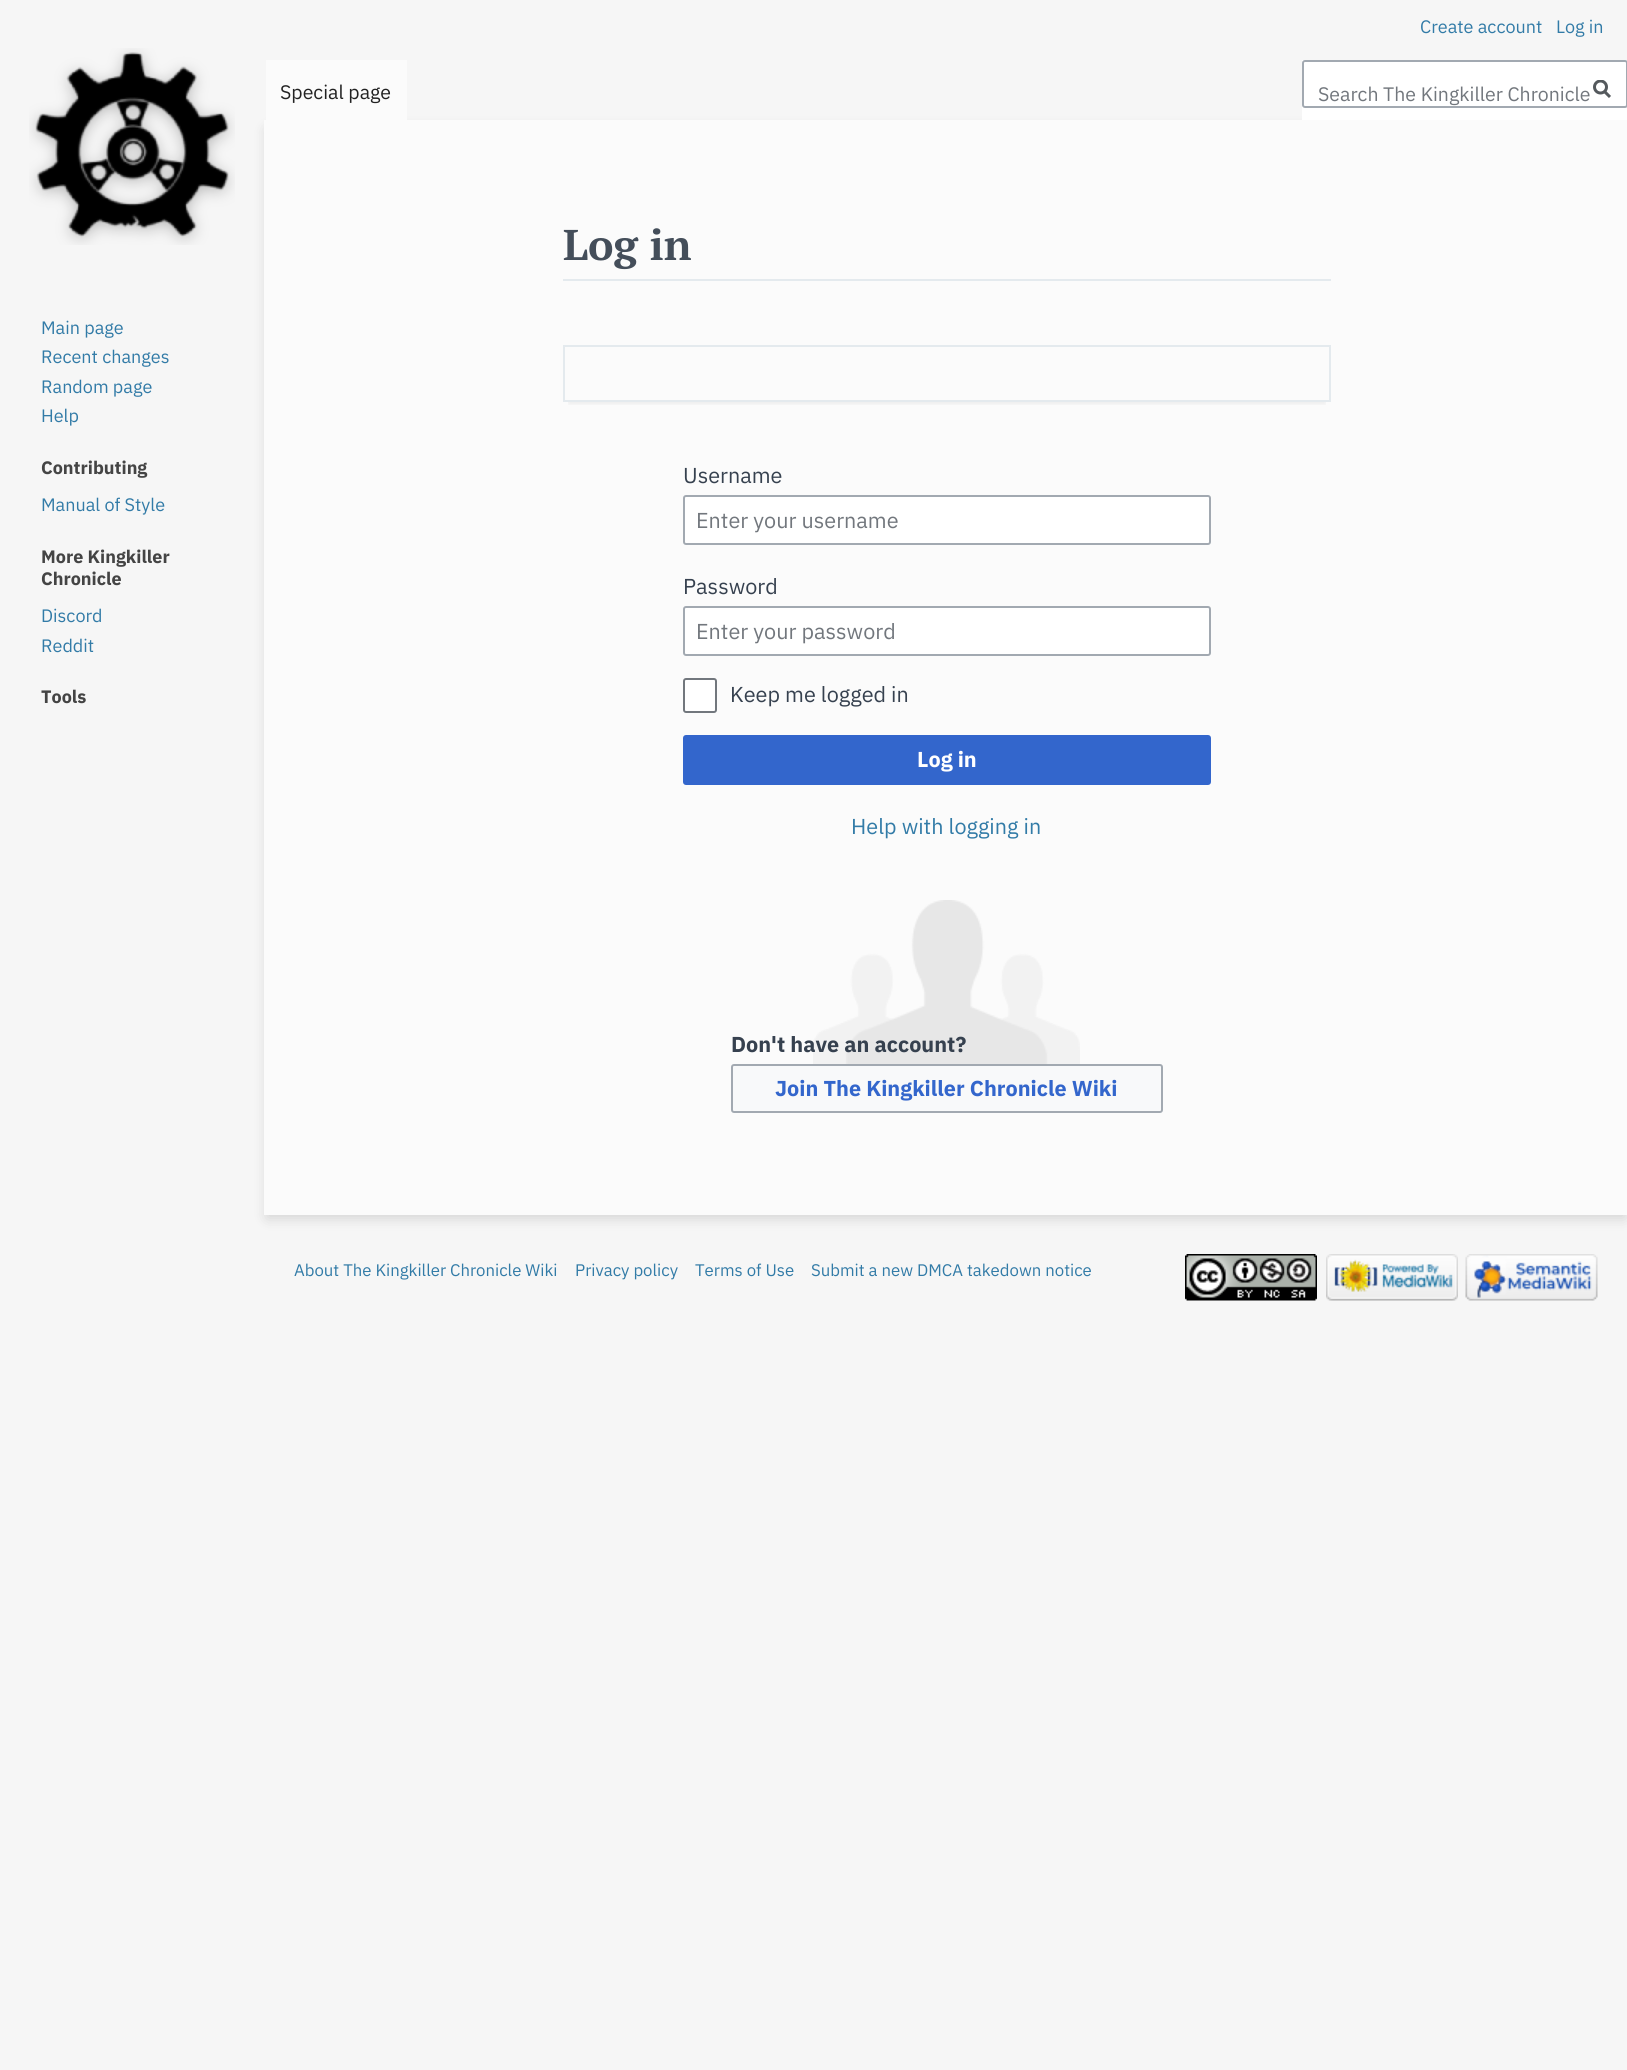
#include <cairo/cairo.h>
#include <math.h>
#include <stddef.h>

typedef struct { double x, y; const char *s; } line_t;
static cairo_t *cr;

static void rgb(unsigned color)
{
	cairo_set_source_rgb(cr, (color >> 16) / 255.0, (color >> 8 & 255) / 255.0, (color & 255) / 255.0);
}

static void rrect(double x, double y, double w, double h, double r)
{
	cairo_new_sub_path(cr);
	cairo_arc(cr, x + w - r, y + h - r, r, 0, M_PI / 2);
	cairo_arc(cr, x + r, y + h - r, r, M_PI / 2, M_PI);
	cairo_arc(cr, x + r, y + r, r, M_PI, 1.5 * M_PI);
	cairo_arc(cr, x + w - r, y + r, r, 1.5 * M_PI, 2 * M_PI);
	cairo_close_path(cr);
}

static void soft_shadow(double x, double y, double w, double h, double r, double blur, double alpha)
{
	cairo_push_group_with_content(cr, CAIRO_CONTENT_ALPHA);
	cairo_set_operator(cr, CAIRO_OPERATOR_SOURCE);
	for (int i = 15; i >= -15 && fmin(w, h) + blur * i / 3 > 0; i -= 2) {
		double e = blur * i / 6;
		cairo_set_source_rgba(cr, 0, 0, 0, alpha * erfc((i - 1) / 8.5) / 2);
		rrect(x - e, y - e, w + 2 * e, h + 2 * e, fmax(0, fmin(r + e + blur * .6, fmin(w, h) / 2 + e)));
		cairo_fill(cr);
	}
	cairo_pattern_t *soft = cairo_pop_group(cr);
	cairo_mask(cr, soft);
	cairo_pattern_destroy(soft);
}

static void image(const char *path, double x, double y, double w, double h)
{
	cairo_surface_t *image = cairo_image_surface_create_from_png(path);
	cairo_save(cr);
	cairo_set_source_surface(cr, image, x, y);
	cairo_rectangle(cr, x, y, w, h);
	cairo_fill(cr);
	cairo_restore(cr);
	cairo_surface_destroy(image);
}

int main(void) {
	cairo_surface_t *surface = cairo_image_surface_create(CAIRO_FORMAT_RGB24, 1627, 2070);
	cr = cairo_create(surface);
	cairo_font_options_t *options = cairo_font_options_create();
	cairo_font_options_set_hint_metrics(options, CAIRO_HINT_METRICS_OFF);
	cairo_font_options_set_hint_style(options, CAIRO_HINT_STYLE_NONE);
	cairo_set_font_options(cr, options);
	cairo_set_miter_limit(cr, 4);
	rgb(0xf6f6f6);
	cairo_paint(cr);
	rgb(0x000000);
	soft_shadow(267, 129, 1358, 1089, 0, 7, 0.15);
	rgb(0xfbfbfb);
	cairo_rectangle(cr, 266, 60, 141, 60);
	cairo_fill(cr);
	rgb(0xffffff);
	cairo_rectangle(cr, 1302, 60, 325, 60);
	cairo_fill(cr);
	rrect(1303, 61, 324, 46, 2);
	rgb(0xa2a9b1);
	cairo_stroke(cr);
	cairo_new_path(cr);
	cairo_move_to(cr, 1610, 97);
	cairo_line_to(cr, 1604, 91);
	rgb(0x54595d);
	cairo_set_line_width(cr, 3);
	cairo_stroke(cr);
	cairo_save(cr);
	cairo_rectangle(cr, 1593, 80, 18, 19);
	cairo_clip(cr);
	cairo_arc(cr, 1600.5, 87, 6, 0, 2 * M_PI);
	cairo_stroke(cr);
	cairo_restore(cr);
	image("img/1.png", 29, 48, 206, 197);
	rgb(0xfbfbfb);
	cairo_rectangle(cr, 264, 120, 1363, 1095);
	cairo_fill(cr);
	rgb(0xe4eaee);
	cairo_rectangle(cr, 563, 279, 768, 2);
	cairo_fill(cr);
	cairo_save(cr);
	cairo_rectangle(cr, 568, 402, 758, 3);
	cairo_clip(cr);
	rgb(0x000000);
	soft_shadow(569, 357, 756, 45, 0, 4, 0.1);
	cairo_restore(cr);
	cairo_rectangle(cr, 564, 346, 766, 55);
	cairo_set_line_width(cr, 2);
	cairo_stroke(cr);
	rgb(0xffffff);
	rrect(684, 496, 526, 48, 2);
	cairo_fill_preserve(cr);
	rgb(0xa2a9b1);
	cairo_stroke(cr);
	rgb(0xffffff);
	rrect(684, 607, 526, 48, 2);
	cairo_fill_preserve(cr);
	rgb(0xa2a9b1);
	cairo_stroke(cr);
	rgb(0xffffff);
	rrect(684, 679, 32, 33, 2);
	cairo_fill_preserve(cr);
	rgb(0x72777d);
	cairo_stroke(cr);
	rgb(0x3366cc);
	rrect(684, 736, 526, 48, 2);
	cairo_fill_preserve(cr);
	cairo_stroke(cr);
	image("img/2.png", 813, 900, 267, 164);
	rgb(0xf8f9fa);
	rrect(732, 1065, 430, 47, 2);
	cairo_fill_preserve(cr);
	rgb(0xa2a9b1);
	cairo_stroke(cr);
	image("img/3.png", 1185, 1254, 132, 47);
	image("img/4.png", 1326, 1254, 132, 47);
	image("img/5.png", 1465, 1254, 133, 47);
	cairo_select_font_face(cr, "IBM Plex Sans", CAIRO_FONT_SLANT_NORMAL, CAIRO_FONT_WEIGHT_NORMAL);
	cairo_set_font_size(cr, 18);
	rgb(0x327ba7);
	cairo_move_to(cr, 1420, 33);
	cairo_show_text(cr, "Create account");
	cairo_move_to(cr, 1556, 33);
	cairo_show_text(cr, "Log in");
	cairo_set_font_size(cr, 19.5);
	rgb(0x222222);
	cairo_move_to(cr, 280, 99);
	cairo_show_text(cr, "Special page");
	rgb(0x72777d);
	cairo_move_to(cr, 1318, 101);
	cairo_show_text(cr, "Search The Kingkiller Chronicle");
	cairo_set_font_size(cr, 18);
	rgb(0x327ba7);
	{
		static const line_t items[] = {
			{41, 334, "Main page"},
			{41, 363, "Recent changes"},
			{41, 393, "Random page"},
			{41, 422, "Help"},
		};
		for (size_t i = 0; i < sizeof items / sizeof *items; i++) {
			cairo_move_to(cr, items[i].x, items[i].y);
			cairo_show_text(cr, items[i].s);
		}
	}
	cairo_select_font_face(cr, "IBM Plex Sans", CAIRO_FONT_SLANT_NORMAL, CAIRO_FONT_WEIGHT_BOLD);
	rgb(0x444444);
	cairo_move_to(cr, 41, 474);
	cairo_show_text(cr, "Contributing");
	cairo_select_font_face(cr, "IBM Plex Sans", CAIRO_FONT_SLANT_NORMAL, CAIRO_FONT_WEIGHT_NORMAL);
	rgb(0x327ba7);
	cairo_move_to(cr, 41, 511);
	cairo_show_text(cr, "Manual of Style");
	cairo_select_font_face(cr, "IBM Plex Sans", CAIRO_FONT_SLANT_NORMAL, CAIRO_FONT_WEIGHT_BOLD);
	rgb(0x444444);
	cairo_move_to(cr, 41, 563);
	cairo_show_text(cr, "More Kingkiller");
	cairo_move_to(cr, 41, 585);
	cairo_show_text(cr, "Chronicle");
	cairo_select_font_face(cr, "IBM Plex Sans", CAIRO_FONT_SLANT_NORMAL, CAIRO_FONT_WEIGHT_NORMAL);
	rgb(0x327ba7);
	cairo_move_to(cr, 41, 622);
	cairo_show_text(cr, "Discord");
	cairo_move_to(cr, 41, 652);
	cairo_show_text(cr, "Reddit");
	cairo_select_font_face(cr, "IBM Plex Sans", CAIRO_FONT_SLANT_NORMAL, CAIRO_FONT_WEIGHT_BOLD);
	rgb(0x444444);
	cairo_move_to(cr, 41, 703);
	cairo_show_text(cr, "Tools");
	cairo_select_font_face(cr, "PT Serif", CAIRO_FONT_SLANT_NORMAL, CAIRO_FONT_WEIGHT_BOLD);
	cairo_set_font_size(cr, 43);
	rgb(0x444e5a);
	cairo_move_to(cr, 563, 260);
	cairo_show_text(cr, "Log in");
	cairo_select_font_face(cr, "IBM Plex Sans", CAIRO_FONT_SLANT_NORMAL, CAIRO_FONT_WEIGHT_NORMAL);
	cairo_set_font_size(cr, 21.6);
	rgb(0x36414f);
	cairo_move_to(cr, 683, 483);
	cairo_show_text(cr, "Username");
	rgb(0x72777d);
	cairo_move_to(cr, 696, 528);
	cairo_show_text(cr, "Enter your username");
	rgb(0x36414f);
	cairo_move_to(cr, 683, 594);
	cairo_show_text(cr, "Password");
	rgb(0x72777d);
	cairo_move_to(cr, 696, 639);
	cairo_show_text(cr, "Enter your password");
	rgb(0x36414f);
	cairo_move_to(cr, 730, 702);
	cairo_show_text(cr, "Keep me logged in");
	cairo_select_font_face(cr, "IBM Plex Sans", CAIRO_FONT_SLANT_NORMAL, CAIRO_FONT_WEIGHT_BOLD);
	rgb(0xffffff);
	cairo_move_to(cr, 917, 767);
	cairo_show_text(cr, "Log in");
	cairo_select_font_face(cr, "IBM Plex Sans", CAIRO_FONT_SLANT_NORMAL, CAIRO_FONT_WEIGHT_NORMAL);
	rgb(0x327ba7);
	cairo_move_to(cr, 851, 834);
	cairo_show_text(cr, "Help with logging in");
	cairo_select_font_face(cr, "IBM Plex Sans", CAIRO_FONT_SLANT_NORMAL, CAIRO_FONT_WEIGHT_BOLD);
	rgb(0x36414f);
	cairo_move_to(cr, 731, 1052);
	cairo_show_text(cr, "Don't have an account?");
	rgb(0x3366cc);
	cairo_move_to(cr, 775, 1096);
	cairo_show_text(cr, "Join The Kingkiller Chronicle Wiki");
	cairo_select_font_face(cr, "IBM Plex Sans", CAIRO_FONT_SLANT_NORMAL, CAIRO_FONT_WEIGHT_NORMAL);
	cairo_set_font_size(cr, 16.75);
	rgb(0x327ba7);
	{
		static const line_t items[] = {
			{294, 1276, "About The Kingkiller Chronicle Wiki"},
			{575, 1276, "Privacy policy"},
			{695, 1276, "Terms of Use"},
			{811, 1276, "Submit a new DMCA takedown notice"},
		};
		for (size_t i = 0; i < sizeof items / sizeof *items; i++) {
			cairo_move_to(cr, items[i].x, items[i].y);
			cairo_show_text(cr, items[i].s);
		}
	}
	cairo_surface_write_to_png(surface, "page.png");
	cairo_font_options_destroy(options);
	cairo_destroy(cr);
	cairo_surface_destroy(surface);
	return 0;
}
